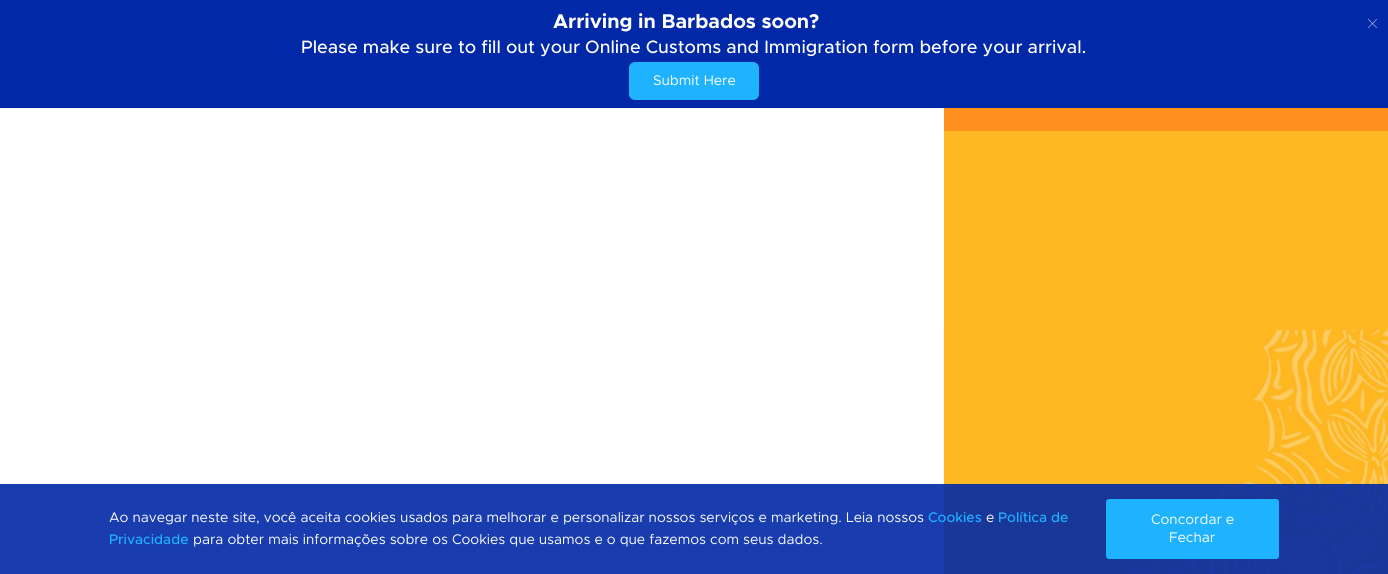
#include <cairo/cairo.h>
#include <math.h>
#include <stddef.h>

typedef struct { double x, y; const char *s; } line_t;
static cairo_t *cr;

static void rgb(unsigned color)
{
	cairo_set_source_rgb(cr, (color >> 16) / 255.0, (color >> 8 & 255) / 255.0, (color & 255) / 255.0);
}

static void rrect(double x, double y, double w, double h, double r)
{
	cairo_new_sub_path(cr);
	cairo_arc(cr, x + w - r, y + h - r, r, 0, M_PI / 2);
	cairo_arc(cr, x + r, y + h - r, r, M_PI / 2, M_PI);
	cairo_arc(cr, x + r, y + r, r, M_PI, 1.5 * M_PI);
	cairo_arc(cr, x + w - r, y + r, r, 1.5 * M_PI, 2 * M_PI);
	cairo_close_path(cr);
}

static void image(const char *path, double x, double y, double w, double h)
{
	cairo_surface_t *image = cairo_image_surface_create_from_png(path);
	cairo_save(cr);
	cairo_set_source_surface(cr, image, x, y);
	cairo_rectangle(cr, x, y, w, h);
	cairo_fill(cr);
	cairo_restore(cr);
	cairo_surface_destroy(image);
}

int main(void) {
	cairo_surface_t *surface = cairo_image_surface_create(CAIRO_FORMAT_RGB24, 1388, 574);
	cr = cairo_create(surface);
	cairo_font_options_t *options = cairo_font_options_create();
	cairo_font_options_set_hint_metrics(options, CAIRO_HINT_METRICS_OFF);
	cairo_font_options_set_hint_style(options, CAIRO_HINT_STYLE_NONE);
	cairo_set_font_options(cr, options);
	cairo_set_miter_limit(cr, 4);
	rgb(0xffffff);
	cairo_paint(cr);
	rgb(0x0028a7);
	cairo_rectangle(cr, 0, 0, 1388, 108);
	cairo_fill(cr);
	image("img/1.png", 1367, 18, 11, 11);
	rgb(0x1eb2ff);
	rrect(629, 62, 130, 38, 6);
	cairo_fill(cr);
	rgb(0xffb822);
	cairo_rectangle(cr, 944, 131, 444, 443);
	cairo_fill(cr);
	image("img/2.png", 943, 329, 445, 245);
	rgb(0xff911e);
	cairo_rectangle(cr, 944, 108, 444, 23);
	cairo_fill(cr);
	cairo_set_source_rgba(cr, 0, 0.157, 0.655, 0.9);
	cairo_rectangle(cr, 0, 484, 1388, 90);
	cairo_fill(cr);
	rgb(0x1eb2ff);
	rrect(1106, 499, 173, 60, 3);
	cairo_fill(cr);
	cairo_select_font_face(cr, "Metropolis", CAIRO_FONT_SLANT_NORMAL, CAIRO_FONT_WEIGHT_BOLD);
	cairo_set_font_size(cr, 20);
	rgb(0xffffff);
	cairo_move_to(cr, 553, 28);
	cairo_show_text(cr, "Arriving in Barbados soon?");
	cairo_select_font_face(cr, "Metropolis Medium", CAIRO_FONT_SLANT_NORMAL, CAIRO_FONT_WEIGHT_NORMAL);
	cairo_set_font_size(cr, 18);
	cairo_move_to(cr, 301, 53);
	cairo_show_text(cr, "Please make sure to fill out your Online Customs and Immigration form before your arrival.");
	cairo_select_font_face(cr, "Metropolis", CAIRO_FONT_SLANT_NORMAL, CAIRO_FONT_WEIGHT_NORMAL);
	cairo_set_font_size(cr, 14);
	cairo_move_to(cr, 653, 85);
	cairo_show_text(cr, "Submit Here");
	cairo_move_to(cr, 109, 522);
	cairo_show_text(cr, "Ao navegar neste site, você aceita cookies usados para melhorar e personalizar nossos serviços e marketing. Leia nossos");
	cairo_select_font_face(cr, "Metropolis Medium", CAIRO_FONT_SLANT_NORMAL, CAIRO_FONT_WEIGHT_NORMAL);
	rgb(0x1eb2ff);
	cairo_move_to(cr, 928, 522);
	cairo_show_text(cr, "Cookies");
	cairo_select_font_face(cr, "Metropolis", CAIRO_FONT_SLANT_NORMAL, CAIRO_FONT_WEIGHT_NORMAL);
	rgb(0xffffff);
	cairo_move_to(cr, 986, 522);
	cairo_show_text(cr, "e");
	cairo_select_font_face(cr, "Metropolis Medium", CAIRO_FONT_SLANT_NORMAL, CAIRO_FONT_WEIGHT_NORMAL);
	rgb(0x1eb2ff);
	cairo_move_to(cr, 998, 522);
	cairo_show_text(cr, "Política de");
	cairo_move_to(cr, 109, 544);
	cairo_show_text(cr, "Privacidade");
	cairo_select_font_face(cr, "Metropolis", CAIRO_FONT_SLANT_NORMAL, CAIRO_FONT_WEIGHT_NORMAL);
	rgb(0xffffff);
	{
		static const line_t items[] = {
			{193, 544, "para obter mais informações sobre os Cookies que usamos e o que fazemos com seus dados."},
			{1151, 524, "Concordar e"},
			{1169, 542, "Fechar"},
		};
		for (size_t i = 0; i < sizeof items / sizeof *items; i++) {
			cairo_move_to(cr, items[i].x, items[i].y);
			cairo_show_text(cr, items[i].s);
		}
	}
	cairo_surface_write_to_png(surface, "page.png");
	cairo_font_options_destroy(options);
	cairo_destroy(cr);
	cairo_surface_destroy(surface);
	return 0;
}
